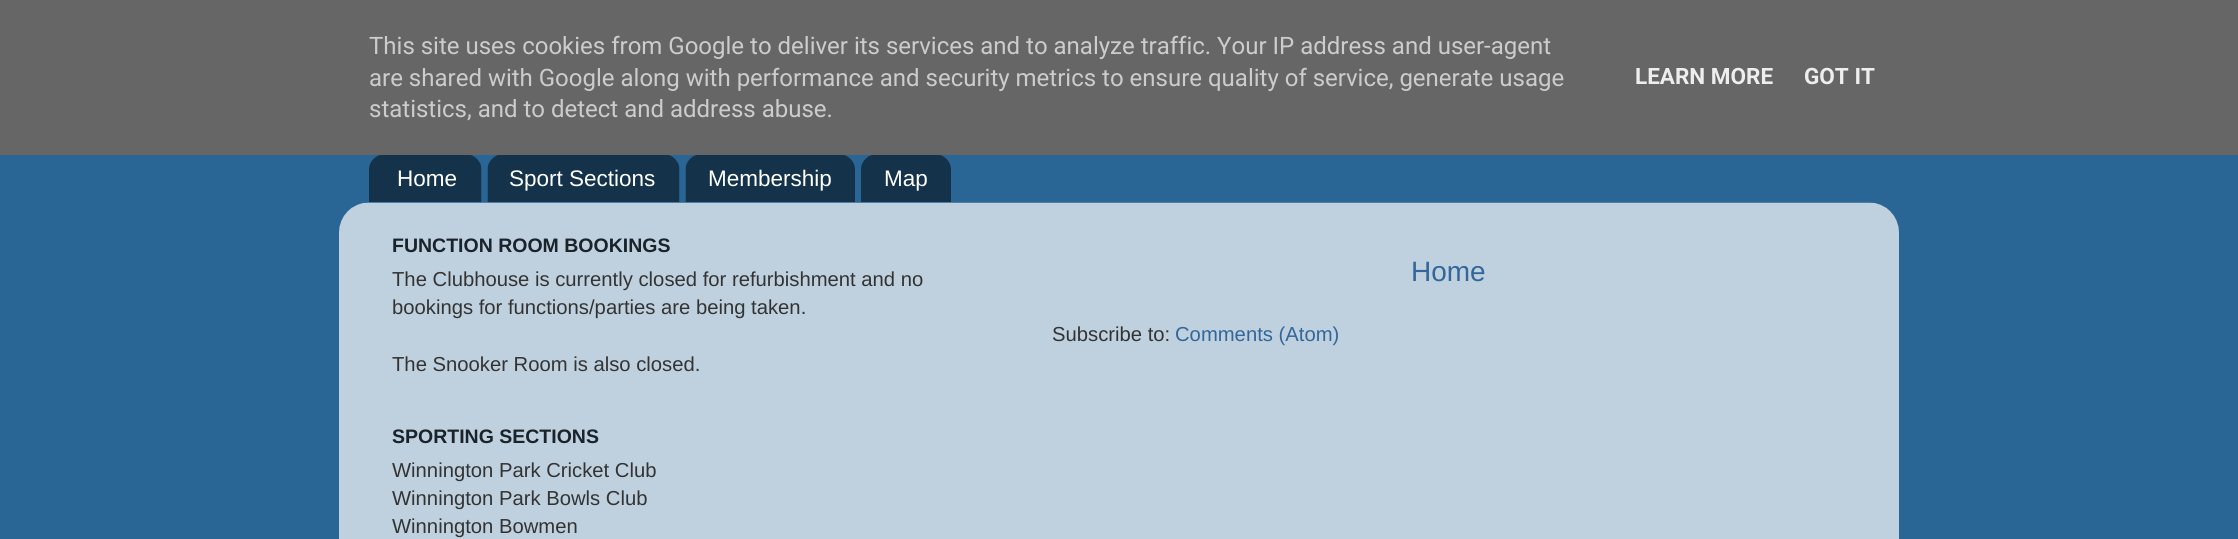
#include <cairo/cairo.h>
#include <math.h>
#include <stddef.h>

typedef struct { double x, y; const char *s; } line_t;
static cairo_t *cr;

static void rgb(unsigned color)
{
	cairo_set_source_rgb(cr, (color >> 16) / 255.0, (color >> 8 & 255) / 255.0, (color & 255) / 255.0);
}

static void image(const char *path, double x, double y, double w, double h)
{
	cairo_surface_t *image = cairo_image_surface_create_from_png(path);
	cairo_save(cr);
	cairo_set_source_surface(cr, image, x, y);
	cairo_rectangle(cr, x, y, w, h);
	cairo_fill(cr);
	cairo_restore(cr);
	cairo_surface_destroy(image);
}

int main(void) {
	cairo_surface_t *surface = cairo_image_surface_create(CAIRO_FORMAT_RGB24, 2238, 539);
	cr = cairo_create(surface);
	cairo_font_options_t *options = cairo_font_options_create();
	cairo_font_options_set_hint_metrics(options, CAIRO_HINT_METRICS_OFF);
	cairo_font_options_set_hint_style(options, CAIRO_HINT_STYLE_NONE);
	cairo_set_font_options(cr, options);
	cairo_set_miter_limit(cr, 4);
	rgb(0x296695);
	cairo_paint(cr);
	rgb(0x666666);
	cairo_rectangle(cr, 0, 0, 2238, 155);
	cairo_fill(cr);
	image("img/1.png", 369, 155, 113, 48);
	image("img/2.png", 487, 155, 193, 48);
	image("img/3.png", 685, 155, 170, 48);
	image("img/4.png", 861, 155, 90, 48);
	image("img/5.png", 339, 202, 1560, 337);
	cairo_select_font_face(cr, "Roboto", CAIRO_FONT_SLANT_NORMAL, CAIRO_FONT_WEIGHT_NORMAL);
	cairo_set_font_size(cr, 24);
	rgb(0xcccccc);
	{
		static const line_t items[] = {
			{369, 54, "This site uses cookies from Google to deliver its services and to analyze traffic. Your IP address and user-agent"},
			{369, 86, "are shared with Google along with performance and security metrics to ensure quality of service, generate usage"},
			{369, 117, "statistics, and to detect and address abuse."},
		};
		for (size_t i = 0; i < sizeof items / sizeof *items; i++) {
			cairo_move_to(cr, items[i].x, items[i].y);
			cairo_show_text(cr, items[i].s);
		}
	}
	cairo_select_font_face(cr, "Roboto", CAIRO_FONT_SLANT_NORMAL, CAIRO_FONT_WEIGHT_BOLD);
	cairo_set_font_size(cr, 22.5);
	rgb(0xeeeeee);
	cairo_move_to(cr, 1635, 84);
	cairo_show_text(cr, "LEARN MORE");
	cairo_move_to(cr, 1804, 84);
	cairo_show_text(cr, "GOT IT");
	cairo_select_font_face(cr, "Liberation Sans", CAIRO_FONT_SLANT_NORMAL, CAIRO_FONT_WEIGHT_NORMAL);
	rgb(0xffffff);
	{
		static const line_t items[] = {
			{397, 186, "Home"},
			{509, 186, "Sport Sections"},
			{708, 186, "Membership"},
			{884, 186, "Map"},
		};
		for (size_t i = 0; i < sizeof items / sizeof *items; i++) {
			cairo_move_to(cr, items[i].x, items[i].y);
			cairo_show_text(cr, items[i].s);
		}
	}
	cairo_select_font_face(cr, "Liberation Sans", CAIRO_FONT_SLANT_NORMAL, CAIRO_FONT_WEIGHT_BOLD);
	cairo_set_font_size(cr, 19.5);
	rgb(0x1a222a);
	cairo_move_to(cr, 392, 252);
	cairo_show_text(cr, "FUNCTION ROOM BOOKINGS");
	cairo_select_font_face(cr, "Liberation Sans", CAIRO_FONT_SLANT_NORMAL, CAIRO_FONT_WEIGHT_NORMAL);
	cairo_set_font_size(cr, 20.25);
	rgb(0x333333);
	{
		static const line_t items[] = {
			{392, 286, "The Clubhouse is currently closed for refurbishment and no"},
			{392, 314, "bookings for functions/parties are being taken."},
			{392, 371, "The Snooker Room is also closed."},
		};
		for (size_t i = 0; i < sizeof items / sizeof *items; i++) {
			cairo_move_to(cr, items[i].x, items[i].y);
			cairo_show_text(cr, items[i].s);
		}
	}
	cairo_select_font_face(cr, "Liberation Sans", CAIRO_FONT_SLANT_NORMAL, CAIRO_FONT_WEIGHT_BOLD);
	cairo_set_font_size(cr, 19.5);
	rgb(0x1a222a);
	cairo_move_to(cr, 392, 443);
	cairo_show_text(cr, "SPORTING SECTIONS");
	cairo_select_font_face(cr, "Liberation Sans", CAIRO_FONT_SLANT_NORMAL, CAIRO_FONT_WEIGHT_NORMAL);
	cairo_set_font_size(cr, 20.25);
	rgb(0x333333);
	{
		static const line_t items[] = {
			{392, 477, "Winnington Park Cricket Club"},
			{392, 505, "Winnington Park Bowls Club"},
			{392, 533, "Winnington Bowmen"},
		};
		for (size_t i = 0; i < sizeof items / sizeof *items; i++) {
			cairo_move_to(cr, items[i].x, items[i].y);
			cairo_show_text(cr, items[i].s);
		}
	}
	cairo_set_font_size(cr, 28);
	rgb(0x336699);
	cairo_move_to(cr, 1411, 281);
	cairo_show_text(cr, "Home");
	cairo_set_font_size(cr, 20.25);
	rgb(0x333333);
	cairo_move_to(cr, 1052, 341);
	cairo_show_text(cr, "Subscribe to:");
	rgb(0x336699);
	cairo_move_to(cr, 1175, 341);
	cairo_show_text(cr, "Comments (Atom)");
	cairo_surface_write_to_png(surface, "page.png");
	cairo_font_options_destroy(options);
	cairo_destroy(cr);
	cairo_surface_destroy(surface);
	return 0;
}
